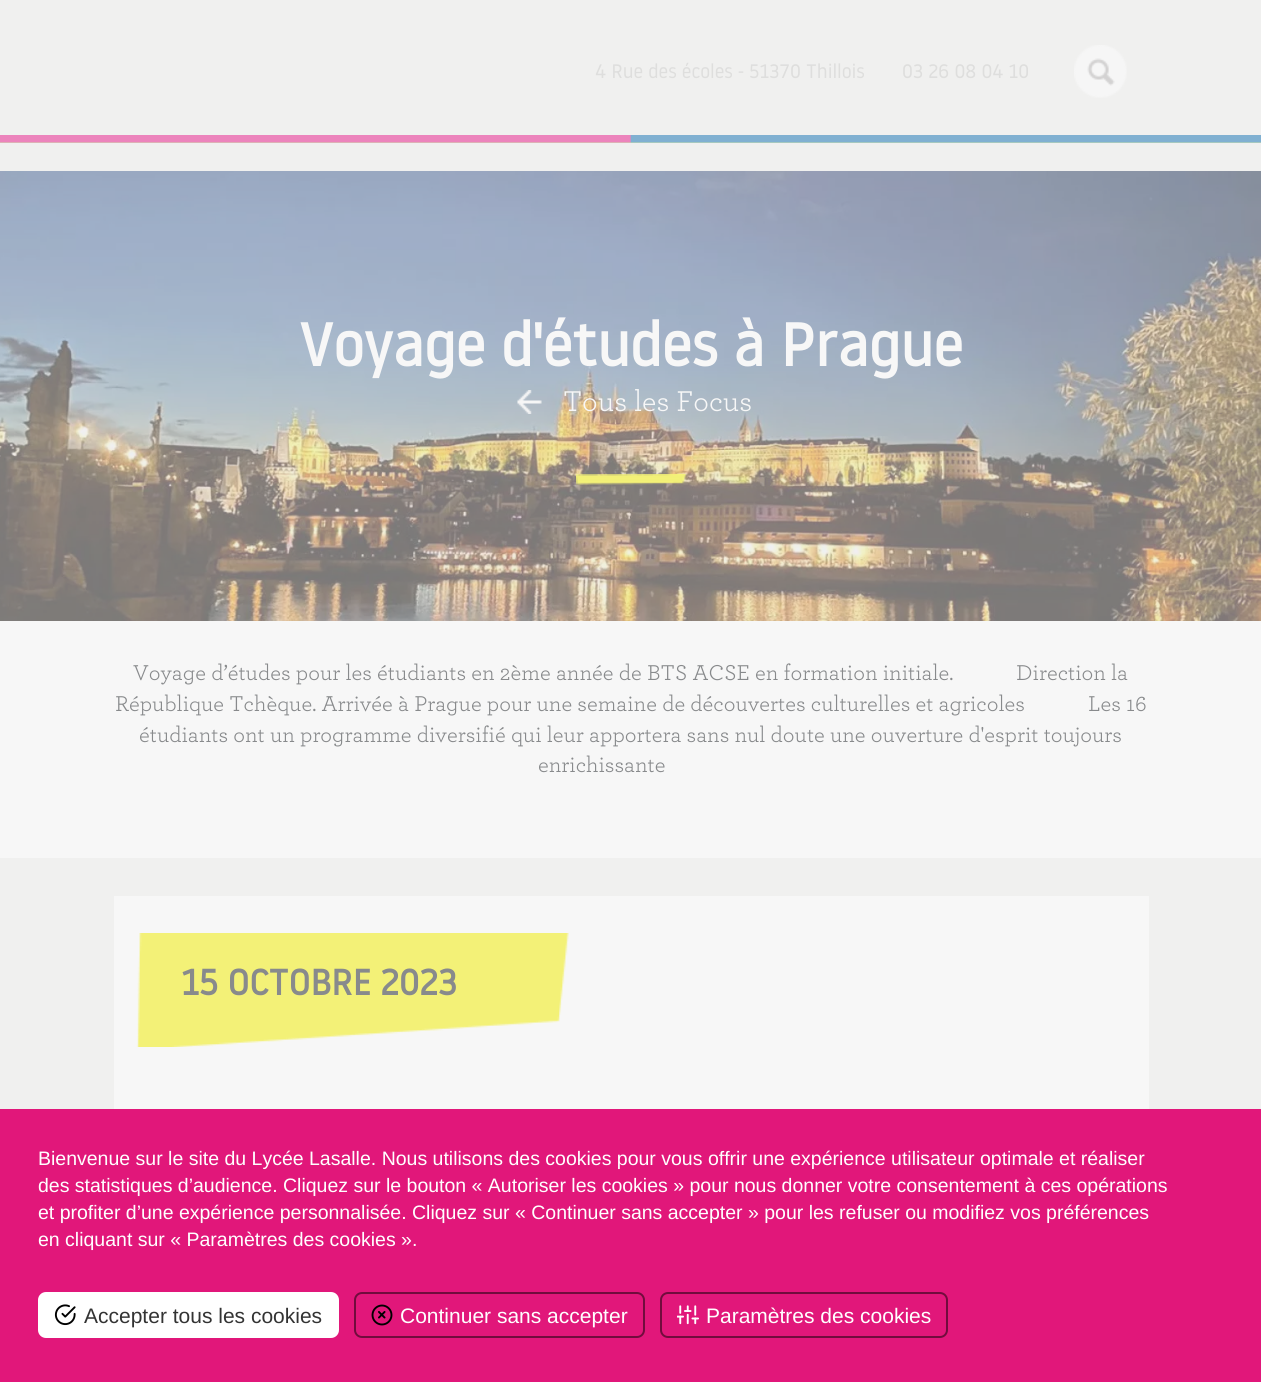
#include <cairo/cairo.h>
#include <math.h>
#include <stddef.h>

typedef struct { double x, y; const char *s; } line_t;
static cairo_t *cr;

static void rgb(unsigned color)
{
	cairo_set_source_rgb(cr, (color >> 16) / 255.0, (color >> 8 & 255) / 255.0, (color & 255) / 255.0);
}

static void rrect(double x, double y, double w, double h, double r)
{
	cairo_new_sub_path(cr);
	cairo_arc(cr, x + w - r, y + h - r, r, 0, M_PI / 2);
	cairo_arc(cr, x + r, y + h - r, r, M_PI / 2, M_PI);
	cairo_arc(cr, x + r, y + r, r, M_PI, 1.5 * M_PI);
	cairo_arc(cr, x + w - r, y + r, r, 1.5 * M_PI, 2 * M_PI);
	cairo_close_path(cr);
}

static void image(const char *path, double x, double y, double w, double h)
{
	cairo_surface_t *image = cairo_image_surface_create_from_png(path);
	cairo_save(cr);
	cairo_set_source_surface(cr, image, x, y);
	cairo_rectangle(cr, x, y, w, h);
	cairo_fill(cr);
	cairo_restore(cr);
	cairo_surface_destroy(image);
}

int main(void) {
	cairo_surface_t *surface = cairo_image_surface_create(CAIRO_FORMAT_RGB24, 1261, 1382);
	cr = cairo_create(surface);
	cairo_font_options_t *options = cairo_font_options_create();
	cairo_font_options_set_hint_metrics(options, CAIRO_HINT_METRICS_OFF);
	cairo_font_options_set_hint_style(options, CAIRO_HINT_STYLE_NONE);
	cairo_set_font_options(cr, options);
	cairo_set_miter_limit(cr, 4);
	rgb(0xf0f0ef);
	cairo_paint(cr);
	image("img/1.png", 1074, 45, 53, 53);
	rgb(0xcce1af);
	cairo_rectangle(cr, 0, 142, 1261, 1);
	cairo_fill(cr);
	image("img/2.png", 0, 135, 1261, 8);
	rgb(0xf7f7f7);
	cairo_rectangle(cr, 0, 621, 1261, 237);
	cairo_fill(cr);
	image("img/3.png", 0, 171, 1261, 450);
	image("img/4.png", 576, 474, 110, 11);
	image("img/5.png", 517, 390, 25, 24);
	cairo_rectangle(cr, 114, 896, 1035, 213);
	cairo_fill(cr);
	image("img/6.png", 136, 933, 433, 114);
	rgb(0xe1177a);
	cairo_rectangle(cr, 0, 1109, 1261, 273);
	cairo_fill(cr);
	rgb(0xffffff);
	rrect(39, 1293, 299, 44, 7);
	cairo_fill_preserve(cr);
	cairo_stroke(cr);
	image("img/7.png", 54, 1304, 22, 22);
	rrect(355, 1293, 289, 44, 7);
	rgb(0x710c3d);
	cairo_stroke(cr);
	image("img/8.png", 371, 1304, 22, 22);
	rrect(661, 1293, 286, 44, 7);
	cairo_stroke(cr);
	image("img/9.png", 677, 1305, 22, 20);
	cairo_select_font_face(cr, "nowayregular", CAIRO_FONT_SLANT_NORMAL, CAIRO_FONT_WEIGHT_NORMAL);
	cairo_set_font_size(cr, 19.5);
	rgb(0xdededd);
	cairo_move_to(cr, 595, 78);
	cairo_show_text(cr, "4 Rue des écoles - 51370 Thillois");
	cairo_move_to(cr, 902, 78);
	cairo_show_text(cr, "03 26 08 04 10");
	cairo_select_font_face(cr, "nowayregular", CAIRO_FONT_SLANT_NORMAL, CAIRO_FONT_WEIGHT_BOLD);
	cairo_set_font_size(cr, 60);
	rgb(0xf7f7f7);
	cairo_move_to(cr, 299, 366);
	cairo_show_text(cr, "Voyage d'études à Prague");
	cairo_select_font_face(cr, "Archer", CAIRO_FONT_SLANT_NORMAL, CAIRO_FONT_WEIGHT_NORMAL);
	cairo_set_font_size(cr, 30);
	cairo_move_to(cr, 563, 411);
	cairo_show_text(cr, "Tous les Focus");
	cairo_set_font_size(cr, 22.5);
	rgb(0x888a8c);
	{
		static const line_t items[] = {
			{133, 680, "Voyage d’études pour les étudiants en 2ème année de BTS ACSE en formation initiale."},
			{1016, 680, "Direction la"},
			{115, 711, "République Tchèque. Arrivée à Prague pour une semaine de découvertes culturelles et agricoles"},
			{1088, 711, "Les 16"},
			{139, 742, "étudiants ont un programme diversifié qui leur apportera sans nul doute une ouverture d'esprit toujours"},
			{538, 772, "enrichissante"},
		};
		for (size_t i = 0; i < sizeof items / sizeof *items; i++) {
			cairo_move_to(cr, items[i].x, items[i].y);
			cairo_show_text(cr, items[i].s);
		}
	}
	cairo_select_font_face(cr, "nowayregular", CAIRO_FONT_SLANT_NORMAL, CAIRO_FONT_WEIGHT_BOLD);
	cairo_set_font_size(cr, 36);
	cairo_move_to(cr, 181, 995);
	cairo_show_text(cr, "15 OCTOBRE 2023");
	cairo_select_font_face(cr, "Liberation Sans", CAIRO_FONT_SLANT_NORMAL, CAIRO_FONT_WEIGHT_NORMAL);
	cairo_set_font_size(cr, 19.5);
	rgb(0xffffff);
	{
		static const line_t items[] = {
			{38, 1165, "Bienvenue sur le site du Lycée Lasalle. Nous utilisons des cookies pour vous offrir une expérience utilisateur optimale et réaliser"},
			{38, 1192, "des statistiques d’audience. Cliquez sur le bouton « Autoriser les cookies » pour nous donner votre consentement à ces opérations"},
			{38, 1219, "et profiter d’une expérience personnalisée. Cliquez sur « Continuer sans accepter » pour les refuser ou modifiez vos préférences"},
			{38, 1246, "en cliquant sur « Paramètres des cookies »."},
		};
		for (size_t i = 0; i < sizeof items / sizeof *items; i++) {
			cairo_move_to(cr, items[i].x, items[i].y);
			cairo_show_text(cr, items[i].s);
		}
	}
	cairo_set_font_size(cr, 21);
	rgb(0x333333);
	cairo_move_to(cr, 84, 1323);
	cairo_show_text(cr, "Accepter tous les cookies");
	rgb(0xffffff);
	cairo_move_to(cr, 400, 1323);
	cairo_show_text(cr, "Continuer sans accepter");
	cairo_move_to(cr, 706, 1323);
	cairo_show_text(cr, "Paramètres des cookies");
	cairo_surface_write_to_png(surface, "page.png");
	cairo_font_options_destroy(options);
	cairo_destroy(cr);
	cairo_surface_destroy(surface);
	return 0;
}
